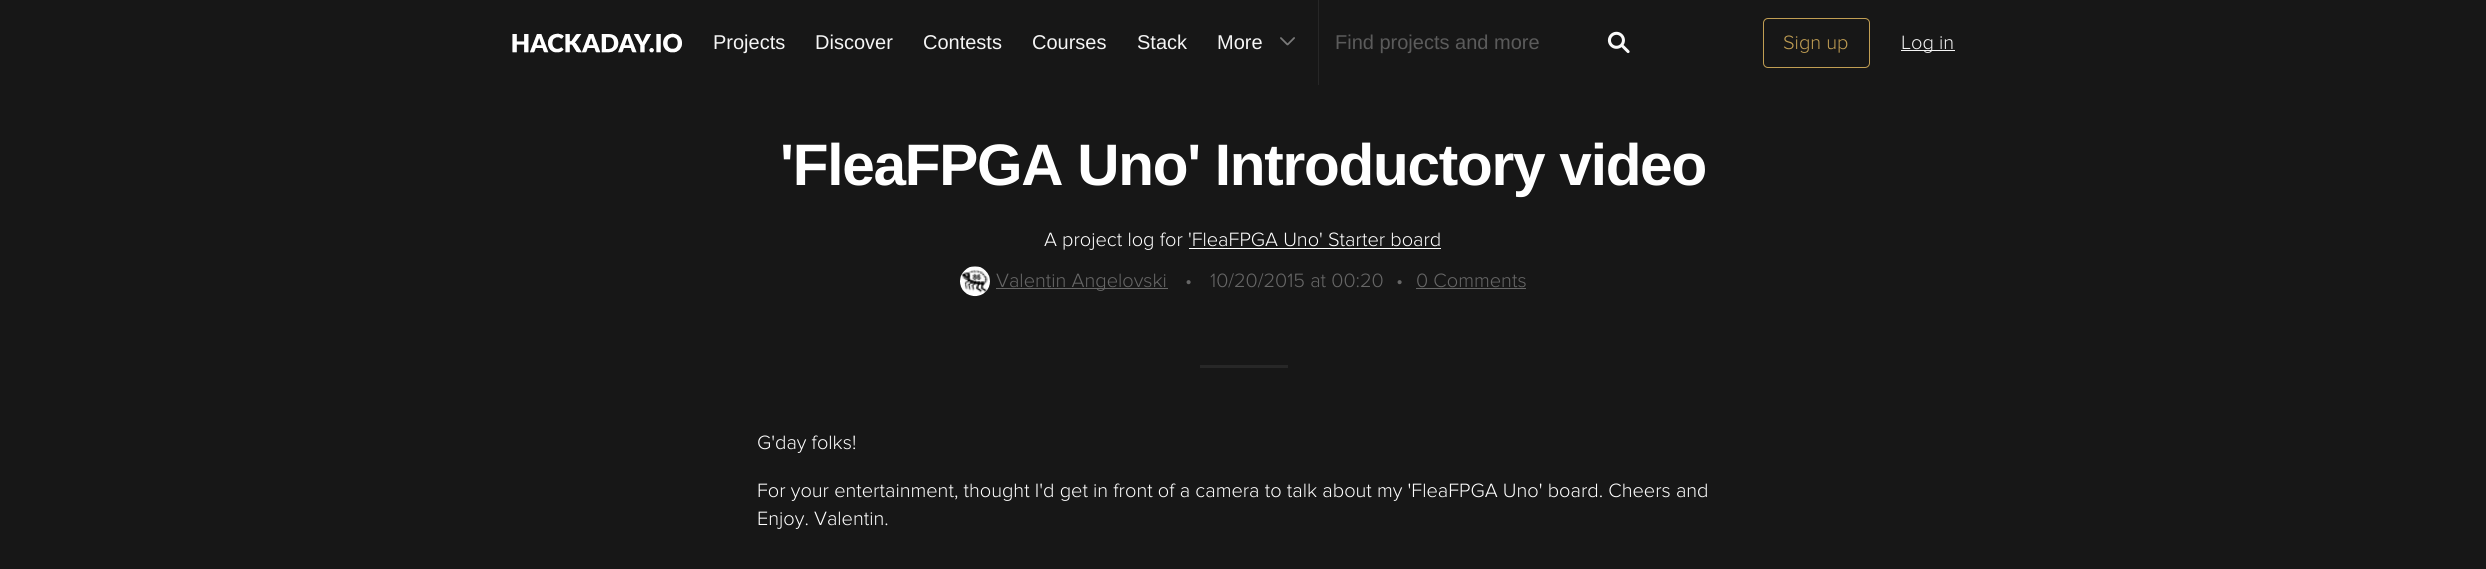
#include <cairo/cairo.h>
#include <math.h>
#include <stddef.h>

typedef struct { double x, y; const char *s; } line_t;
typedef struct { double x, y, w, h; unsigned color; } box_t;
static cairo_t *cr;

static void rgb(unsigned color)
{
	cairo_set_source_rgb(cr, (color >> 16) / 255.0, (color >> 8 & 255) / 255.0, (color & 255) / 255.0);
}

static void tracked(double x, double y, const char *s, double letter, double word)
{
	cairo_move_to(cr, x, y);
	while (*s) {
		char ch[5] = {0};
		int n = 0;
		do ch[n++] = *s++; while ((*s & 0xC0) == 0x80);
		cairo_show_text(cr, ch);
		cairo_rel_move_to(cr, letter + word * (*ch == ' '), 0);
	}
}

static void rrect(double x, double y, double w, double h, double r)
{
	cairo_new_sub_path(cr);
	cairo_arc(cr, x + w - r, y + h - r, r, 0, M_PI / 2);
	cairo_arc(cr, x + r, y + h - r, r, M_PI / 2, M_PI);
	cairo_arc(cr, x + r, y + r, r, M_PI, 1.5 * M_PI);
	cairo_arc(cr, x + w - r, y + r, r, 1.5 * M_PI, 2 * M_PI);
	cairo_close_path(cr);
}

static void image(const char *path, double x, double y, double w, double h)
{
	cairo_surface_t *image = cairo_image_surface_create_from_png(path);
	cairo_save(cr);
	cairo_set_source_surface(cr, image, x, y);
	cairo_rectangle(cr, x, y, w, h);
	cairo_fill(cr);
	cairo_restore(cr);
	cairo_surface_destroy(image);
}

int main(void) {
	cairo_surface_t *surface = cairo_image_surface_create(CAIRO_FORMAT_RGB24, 2486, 569);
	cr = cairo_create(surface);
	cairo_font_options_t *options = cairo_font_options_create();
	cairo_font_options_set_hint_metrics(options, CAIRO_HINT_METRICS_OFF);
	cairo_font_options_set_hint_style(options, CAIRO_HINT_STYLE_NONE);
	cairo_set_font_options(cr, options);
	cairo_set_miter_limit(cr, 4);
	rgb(0x171717);
	cairo_paint(cr);
	image("img/1.png", 512, 33, 170, 20);
	image("img/2.png", 1280, 37, 15, 9);
	rgb(0x272727);
	cairo_rectangle(cr, 1318, 0, 1, 85);
	cairo_fill(cr);
	image("img/3.png", 1607, 31, 23, 23);
	rrect(1763.5, 18.5, 106, 49, 4.5);
	rgb(0xc19e53);
	cairo_set_line_width(cr, 1);
	cairo_stroke(cr);
	rgb(0xf5f5f5);
	cairo_rectangle(cr, 1901, 50, 54, 1);
	cairo_fill(cr);
	rgb(0xffffff);
	cairo_rectangle(cr, 1189, 248, 252, 1);
	cairo_fill(cr);
	rgb(0x000000);
	cairo_arc(cr, 975, 281, 15, 0, 2 * M_PI);
	cairo_fill(cr);
	image("img/4.png", 960, 266, 30, 31);
	{
		static const box_t items[] = {
			{996, 288, 172, 1, 0x676767},
			{1416, 288, 110, 1, 0x676767},
			{1200, 365, 88, 3, 0x272727},
		};
		for (size_t i = 0; i < sizeof items / sizeof *items; i++) {
			rgb(items[i].color);
			cairo_rectangle(cr, items[i].x, items[i].y, items[i].w, items[i].h);
			cairo_fill(cr);
		}
	}
	cairo_select_font_face(cr, "Liberation Sans", CAIRO_FONT_SLANT_NORMAL, CAIRO_FONT_WEIGHT_NORMAL);
	cairo_set_font_size(cr, 20);
	rgb(0xf5f5f5);
	{
		static const line_t items[] = {
			{713, 49, "Projects"},
			{815, 49, "Discover"},
			{923, 49, "Contests"},
			{1032, 49, "Courses"},
			{1137, 49, "Stack"},
			{1217, 49, "More"},
		};
		for (size_t i = 0; i < sizeof items / sizeof *items; i++) {
			cairo_move_to(cr, items[i].x, items[i].y);
			cairo_show_text(cr, items[i].s);
		}
	}
	rgb(0x5b5b5b);
	cairo_move_to(cr, 1335, 49);
	cairo_show_text(cr, "Find projects and more");
	cairo_select_font_face(cr, "Proxima Nova Light", CAIRO_FONT_SLANT_NORMAL, CAIRO_FONT_WEIGHT_NORMAL);
	rgb(0xc19e53);
	cairo_move_to(cr, 1783, 49);
	cairo_show_text(cr, "Sign up");
	rgb(0xf5f5f5);
	cairo_move_to(cr, 1901, 49);
	cairo_show_text(cr, "Log in");
	cairo_select_font_face(cr, "Liberation Sans", CAIRO_FONT_SLANT_NORMAL, CAIRO_FONT_WEIGHT_BOLD);
	cairo_set_font_size(cr, 58.5);
	rgb(0xffffff);
	tracked(780, 185, "'FleaFPGA Uno' Introductory video", -1.25, 0);
	cairo_select_font_face(cr, "Proxima Nova Light", CAIRO_FONT_SLANT_NORMAL, CAIRO_FONT_WEIGHT_NORMAL);
	cairo_set_font_size(cr, 20);
	cairo_move_to(cr, 1044, 246);
	cairo_show_text(cr, "A project log for 'FleaFPGA Uno' Starter board");
	rgb(0x676767);
	{
		static const line_t items[] = {
			{996, 287, "Valentin Angelovski"},
			{1185, 287, "•"},
			{1210, 287, "10/20/2015 at 00:20"},
			{1396, 287, "•"},
			{1416, 287, "0 Comments"},
		};
		for (size_t i = 0; i < sizeof items / sizeof *items; i++) {
			cairo_move_to(cr, items[i].x, items[i].y);
			cairo_show_text(cr, items[i].s);
		}
	}
	rgb(0xffffff);
	{
		static const line_t items[] = {
			{757, 449, "G'day folks!"},
			{757, 497, "For your entertainment, thought I'd get in front of a camera to talk about my 'FleaFPGA Uno' board. Cheers and"},
			{757, 525, "Enjoy. Valentin."},
		};
		for (size_t i = 0; i < sizeof items / sizeof *items; i++) {
			cairo_move_to(cr, items[i].x, items[i].y);
			cairo_show_text(cr, items[i].s);
		}
	}
	cairo_surface_write_to_png(surface, "page.png");
	cairo_font_options_destroy(options);
	cairo_destroy(cr);
	cairo_surface_destroy(surface);
	return 0;
}
